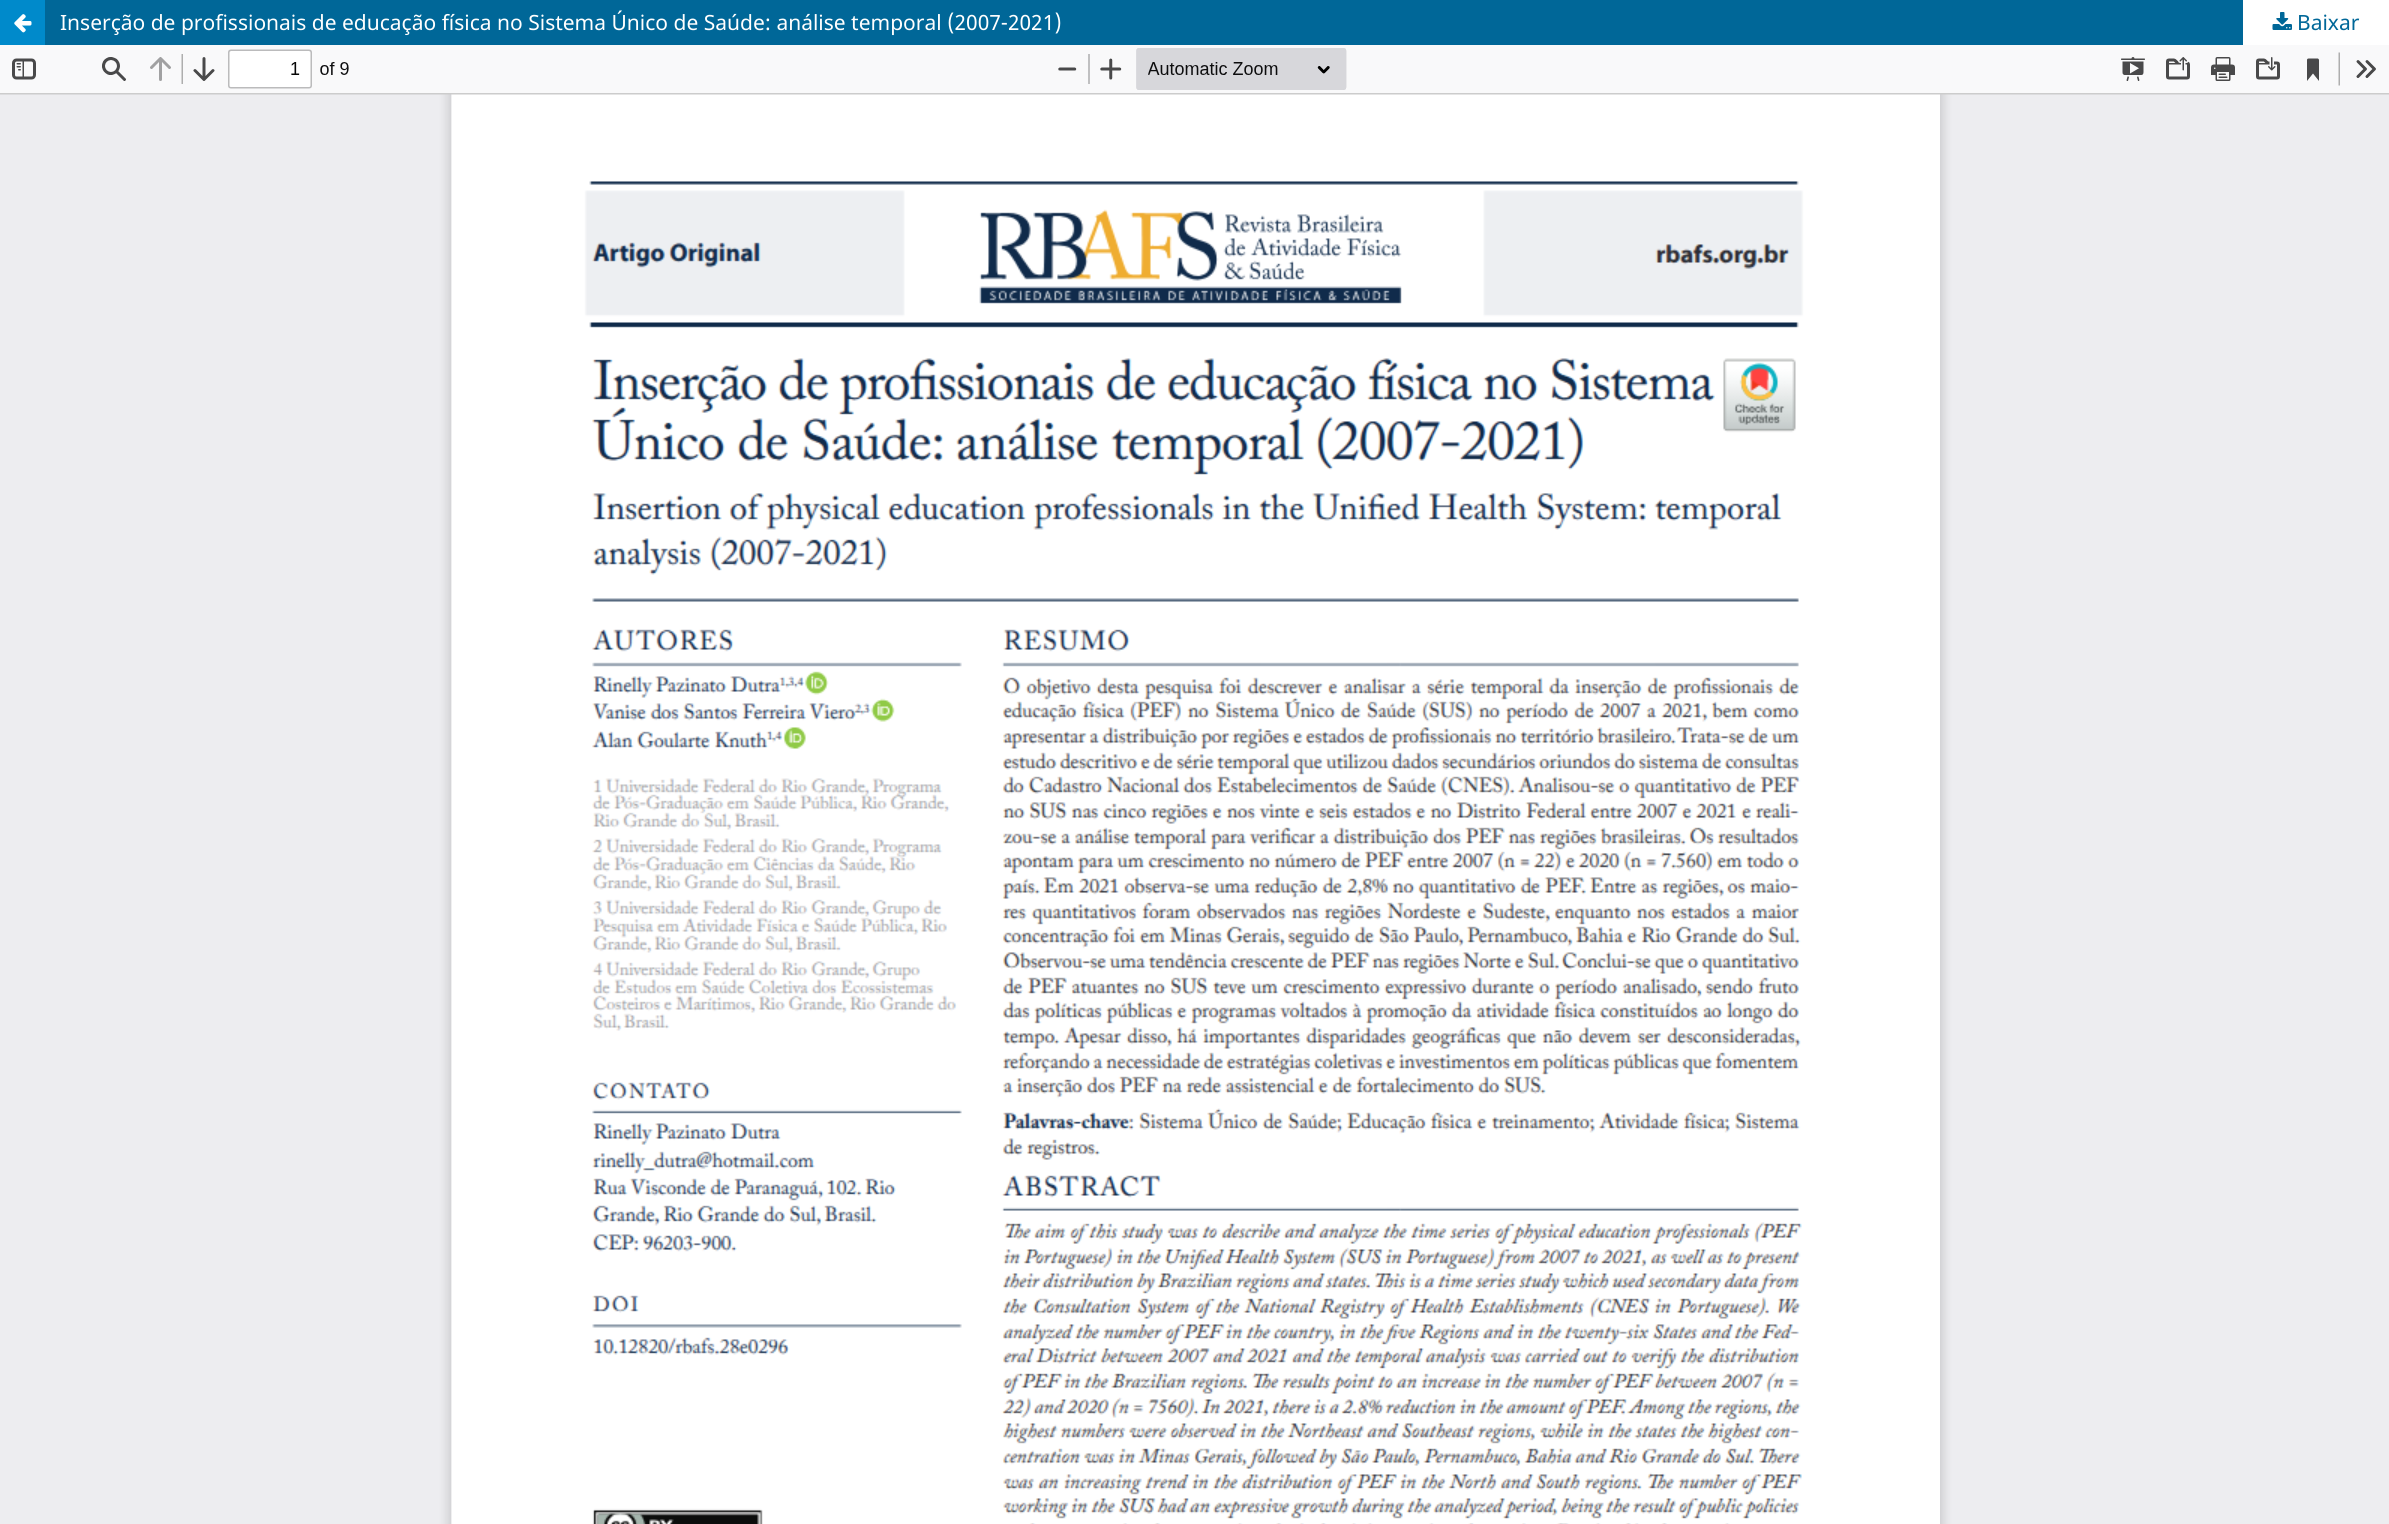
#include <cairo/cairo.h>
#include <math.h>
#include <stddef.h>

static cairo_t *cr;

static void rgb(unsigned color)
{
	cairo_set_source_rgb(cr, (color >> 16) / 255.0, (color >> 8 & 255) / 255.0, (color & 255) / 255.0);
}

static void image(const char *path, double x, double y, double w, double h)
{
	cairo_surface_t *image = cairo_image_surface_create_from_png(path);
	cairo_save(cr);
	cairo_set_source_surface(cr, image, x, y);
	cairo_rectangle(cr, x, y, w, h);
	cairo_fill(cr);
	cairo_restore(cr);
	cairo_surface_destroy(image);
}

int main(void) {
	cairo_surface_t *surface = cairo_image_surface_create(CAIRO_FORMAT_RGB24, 2389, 1524);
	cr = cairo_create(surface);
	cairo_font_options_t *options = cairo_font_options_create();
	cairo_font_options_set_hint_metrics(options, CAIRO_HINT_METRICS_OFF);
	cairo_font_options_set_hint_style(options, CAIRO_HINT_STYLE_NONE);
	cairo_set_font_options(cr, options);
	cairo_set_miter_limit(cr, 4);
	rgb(0xffffff);
	cairo_paint(cr);
	rgb(0x006798);
	cairo_rectangle(cr, 45, 0, 2198, 45);
	cairo_fill(cr);
	rgb(0x008acb);
	cairo_rectangle(cr, 0, 0, 45, 45);
	cairo_fill(cr);
	image("img/1.png", 14, 14, 18, 19);
	image("img/2.png", 2272, 12, 20, 18);
	image("img/3.png", 0, 45, 2389, 1479);
	cairo_select_font_face(cr, "Noto Sans", CAIRO_FONT_SLANT_NORMAL, CAIRO_FONT_WEIGHT_NORMAL);
	cairo_set_font_size(cr, 21);
	rgb(0xffffff);
	cairo_move_to(cr, 60, 30);
	cairo_show_text(cr, "Inserção de profissionais de educação física no Sistema Único de Saúde: análise temporal (2007-2021)");
	rgb(0x006798);
	cairo_move_to(cr, 2297, 30);
	cairo_show_text(cr, "Baixar");
	cairo_surface_write_to_png(surface, "page.png");
	cairo_font_options_destroy(options);
	cairo_destroy(cr);
	cairo_surface_destroy(surface);
	return 0;
}
